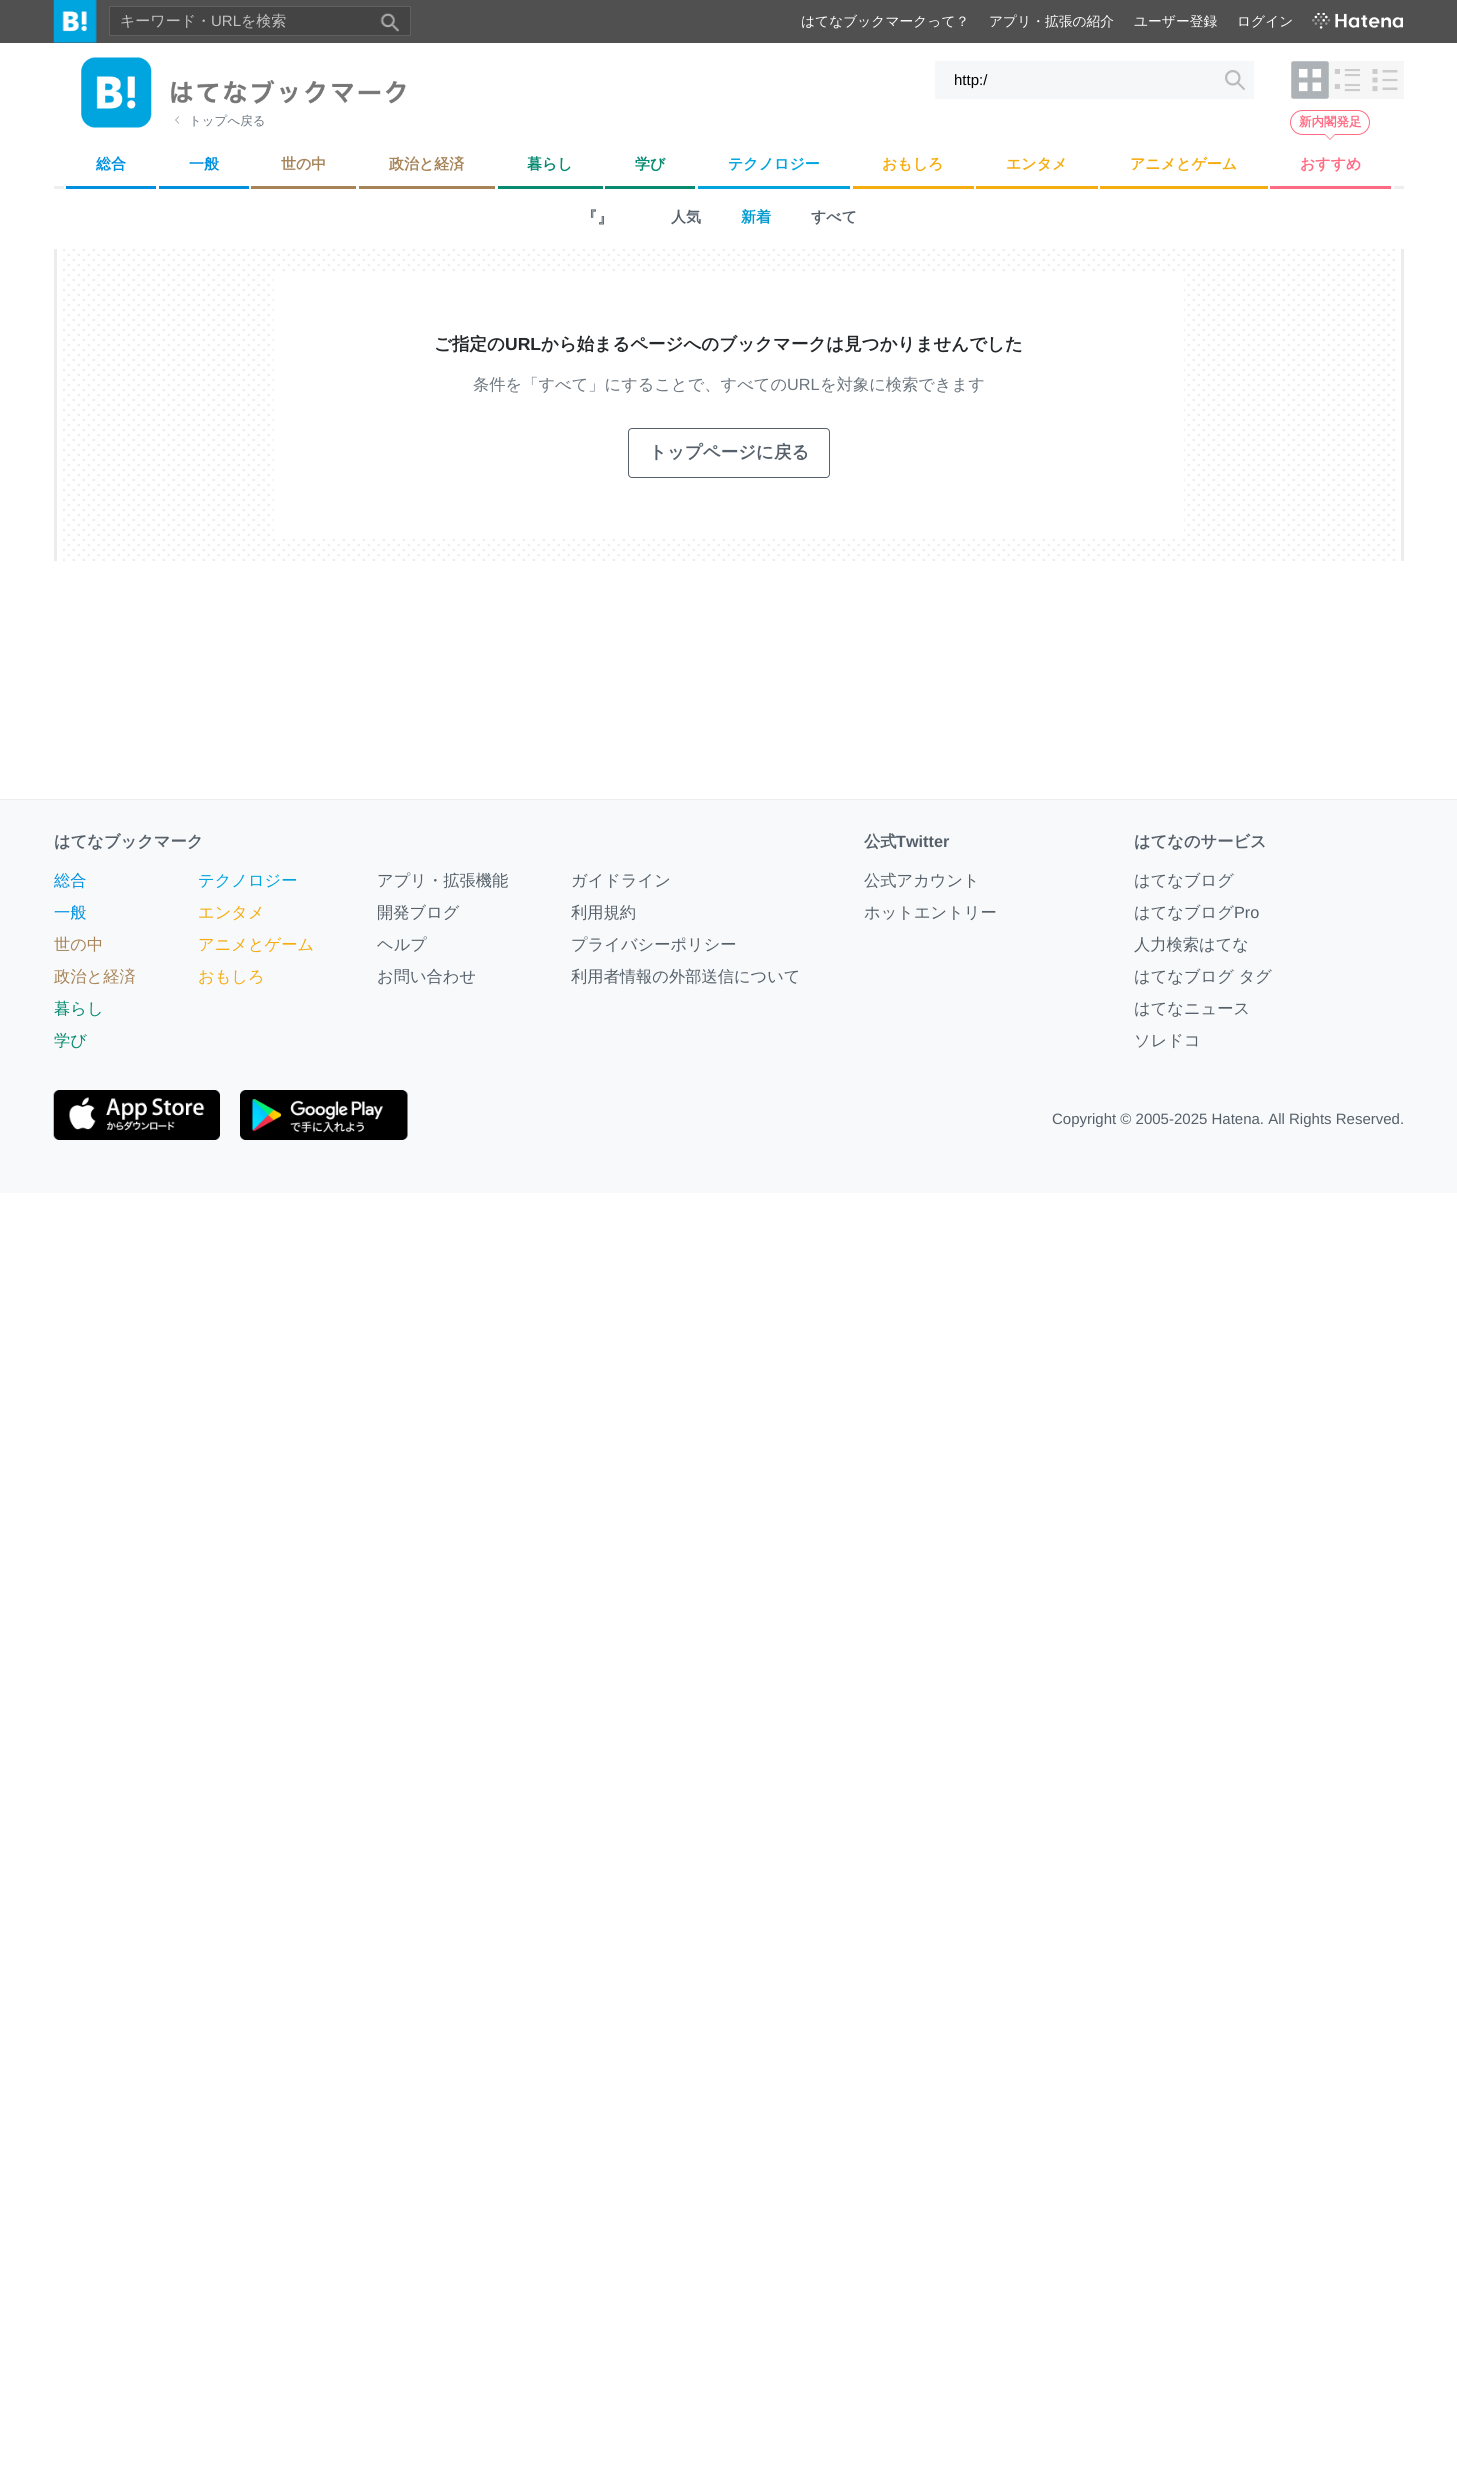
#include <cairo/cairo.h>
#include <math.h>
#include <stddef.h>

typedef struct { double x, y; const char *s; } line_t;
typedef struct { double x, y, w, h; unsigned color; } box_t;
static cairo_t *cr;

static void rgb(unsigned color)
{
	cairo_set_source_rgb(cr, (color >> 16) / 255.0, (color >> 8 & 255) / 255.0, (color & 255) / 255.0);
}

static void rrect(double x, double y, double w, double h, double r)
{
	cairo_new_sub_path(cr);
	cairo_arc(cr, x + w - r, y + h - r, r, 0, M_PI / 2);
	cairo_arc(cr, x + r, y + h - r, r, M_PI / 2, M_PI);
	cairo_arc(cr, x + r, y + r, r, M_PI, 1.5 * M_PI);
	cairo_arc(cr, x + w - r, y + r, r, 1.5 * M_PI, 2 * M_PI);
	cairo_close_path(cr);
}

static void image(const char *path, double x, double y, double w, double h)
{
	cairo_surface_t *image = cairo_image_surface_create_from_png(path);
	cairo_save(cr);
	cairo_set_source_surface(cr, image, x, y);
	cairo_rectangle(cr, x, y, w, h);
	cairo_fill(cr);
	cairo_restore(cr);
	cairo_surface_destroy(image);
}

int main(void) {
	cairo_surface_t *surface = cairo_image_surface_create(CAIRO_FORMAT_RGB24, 1457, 2492);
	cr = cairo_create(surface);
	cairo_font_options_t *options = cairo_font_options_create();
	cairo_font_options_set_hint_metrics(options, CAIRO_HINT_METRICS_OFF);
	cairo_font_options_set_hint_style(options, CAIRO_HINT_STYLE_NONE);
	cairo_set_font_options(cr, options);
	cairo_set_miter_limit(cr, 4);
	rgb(0xffffff);
	cairo_paint(cr);
	rgb(0x505050);
	cairo_rectangle(cr, 0, 0, 1457, 43);
	cairo_fill(cr);
	image("img/1.png", 53, 0, 44, 43);
	rgb(0x444444);
	cairo_rectangle(cr, 109.5, 6.5, 301, 29);
	cairo_fill_preserve(cr);
	rgb(0x606060);
	cairo_set_line_width(cr, 1);
	cairo_stroke(cr);
	image("img/2.png", 380, 13, 19, 19);
	image("img/3.png", 1312, 13, 91, 16);
	rgb(0xf6f7f8);
	cairo_rectangle(cr, 935, 61, 319, 38);
	cairo_fill(cr);
	image("img/4.png", 1225, 70, 20, 20);
	rgb(0xf6f6f6);
	cairo_rectangle(cr, 1291, 61, 113, 38);
	cairo_fill(cr);
	image("img/5.png", 1291, 61, 38, 38);
	image("img/6.png", 1334, 69, 26, 23);
	image("img/7.png", 1372, 69, 26, 23);
	image("img/8.png", 81, 57, 71, 71);
	image("img/9.png", 171, 80, 235, 24);
	rgb(0x999999);
	cairo_new_path(cr);
	cairo_move_to(cr, 179, 116);
	cairo_line_to(cr, 179, 124);
	cairo_line_to(cr, 175, 120);
	cairo_close_path(cr);
	cairo_fill(cr);
	rgb(0xffffff);
	cairo_new_path(cr);
	cairo_move_to(cr, 180, 116);
	cairo_line_to(cr, 180, 124);
	cairo_line_to(cr, 176, 120);
	cairo_close_path(cr);
	cairo_fill(cr);
	{
		static const box_t items[] = {
			{66, 186, 90, 3, 0x008fde},
			{159, 186, 90, 3, 0x008fde},
			{251, 186, 105, 3, 0xa78358},
			{359, 186, 136, 3, 0xa78358},
			{498, 186, 105, 3, 0x068b71},
			{605, 186, 90, 3, 0x068b71},
			{698, 186, 152, 3, 0x00a5de},
			{853, 186, 121, 3, 0xf5ac0f},
			{976, 186, 122, 3, 0xf5ac0f},
			{1100, 186, 168, 3, 0xf5ac0f},
		};
		for (size_t i = 0; i < sizeof items / sizeof *items; i++) {
			rgb(items[i].color);
			cairo_rectangle(cr, items[i].x, items[i].y, items[i].w, items[i].h);
			cairo_fill(cr);
		}
	}
	rrect(1290.5, 110.5, 79, 24, 12);
	rgb(0xff6b83);
	cairo_stroke(cr);
	cairo_new_path(cr);
	cairo_move_to(cr, 1325, 135);
	cairo_line_to(cr, 1335, 135);
	cairo_line_to(cr, 1330, 140);
	cairo_close_path(cr);
	cairo_fill(cr);
	rgb(0xffffff);
	cairo_new_path(cr);
	cairo_move_to(cr, 1325, 134);
	cairo_line_to(cr, 1335, 134);
	cairo_line_to(cr, 1330, 139);
	cairo_close_path(cr);
	cairo_fill(cr);
	{
		static const box_t items[] = {
			{1270, 186, 121, 3, 0xff6b83},
			{54, 186, 10, 3, 0xeeeeee},
			{1394, 186, 10, 3, 0xeeeeee},
			{1401, 249, 3, 312, 0xececec},
			{54, 249, 3, 312, 0xececec},
		};
		for (size_t i = 0; i < sizeof items / sizeof *items; i++) {
			rgb(items[i].color);
			cairo_rectangle(cr, items[i].x, items[i].y, items[i].w, items[i].h);
			cairo_fill(cr);
		}
	}
	image("img/10.png", 63, 249, 1332, 312);
	rgb(0xffffff);
	cairo_rectangle(cr, 274, 274, 910, 262);
	cairo_fill(cr);
	rrect(628.5, 428.5, 201, 49, 3.5);
	rgb(0x55606a);
	cairo_stroke(cr);
	rgb(0xf8f9fa);
	cairo_rectangle(cr, 0, 800, 1457, 393);
	cairo_fill(cr);
	rgb(0xeeeeee);
	cairo_rectangle(cr, 0, 799, 1457, 1);
	cairo_fill(cr);
	image("img/11.png", 53, 1090, 167, 50);
	image("img/12.png", 240, 1090, 168, 50);
	cairo_select_font_face(cr, "WenQuanYi Zen Hei Medium", CAIRO_FONT_SLANT_NORMAL, CAIRO_FONT_WEIGHT_NORMAL);
	cairo_set_font_size(cr, 15);
	rgb(0xc2c2c2);
	cairo_move_to(cr, 120, 26);
	cairo_show_text(cr, "キーワード・");
	cairo_select_font_face(cr, "Liberation Sans", CAIRO_FONT_SLANT_NORMAL, CAIRO_FONT_WEIGHT_NORMAL);
	cairo_move_to(cr, 211, 26);
	cairo_show_text(cr, "URL");
	cairo_select_font_face(cr, "WenQuanYi Zen Hei Medium", CAIRO_FONT_SLANT_NORMAL, CAIRO_FONT_WEIGHT_NORMAL);
	cairo_move_to(cr, 241, 26);
	cairo_show_text(cr, "を検索");
	cairo_set_font_size(cr, 13.75);
	rgb(0xffffff);
	{
		static const line_t items[] = {
			{801, 26, "はてなブックマークって？"},
			{989, 26, "アプリ・拡張の紹介"},
			{1134, 26, "ユーザー登録"},
			{1237, 26, "ログイン"},
		};
		for (size_t i = 0; i < sizeof items / sizeof *items; i++) {
			cairo_move_to(cr, items[i].x, items[i].y);
			cairo_show_text(cr, items[i].s);
		}
	}
	cairo_select_font_face(cr, "Liberation Sans", CAIRO_FONT_SLANT_NORMAL, CAIRO_FONT_WEIGHT_NORMAL);
	cairo_set_font_size(cr, 15);
	rgb(0x000000);
	cairo_move_to(cr, 954, 85);
	cairo_show_text(cr, "http:/");
	cairo_select_font_face(cr, "WenQuanYi Zen Hei Medium", CAIRO_FONT_SLANT_NORMAL, CAIRO_FONT_WEIGHT_NORMAL);
	cairo_set_font_size(cr, 12.5);
	rgb(0x6b757e);
	cairo_move_to(cr, 189, 125);
	cairo_show_text(cr, "トップへ戻る");
	cairo_select_font_face(cr, "WenQuanYi Zen Hei", CAIRO_FONT_SLANT_NORMAL, CAIRO_FONT_WEIGHT_BOLD);
	cairo_set_font_size(cr, 15);
	rgb(0x008fde);
	cairo_move_to(cr, 96, 169);
	cairo_show_text(cr, "総合");
	cairo_move_to(cr, 189, 169);
	cairo_show_text(cr, "一般");
	rgb(0xa78358);
	cairo_move_to(cr, 281, 169);
	cairo_show_text(cr, "世の中");
	cairo_move_to(cr, 389, 169);
	cairo_show_text(cr, "政治と経済");
	rgb(0x068b71);
	cairo_move_to(cr, 527, 169);
	cairo_show_text(cr, "暮らし");
	cairo_move_to(cr, 635, 169);
	cairo_show_text(cr, "学び");
	rgb(0x00a5de);
	cairo_move_to(cr, 728, 169);
	cairo_show_text(cr, "テクノロジー");
	rgb(0xf5ac0f);
	{
		static const line_t items[] = {
			{882, 169, "おもしろ"},
			{1006, 169, "エンタメ"},
			{1130, 169, "アニメとゲーム"},
		};
		for (size_t i = 0; i < sizeof items / sizeof *items; i++) {
			cairo_move_to(cr, items[i].x, items[i].y);
			cairo_show_text(cr, items[i].s);
		}
	}
	cairo_set_font_size(cr, 12.5);
	rgb(0xff6b83);
	cairo_move_to(cr, 1299, 126);
	cairo_show_text(cr, "新内閣発足");
	cairo_set_font_size(cr, 15);
	cairo_move_to(cr, 1300, 169);
	cairo_show_text(cr, "おすすめ");
	cairo_set_font_size(cr, 16.25);
	rgb(0x55606a);
	cairo_move_to(cr, 581, 223);
	cairo_show_text(cr, "『』");
	cairo_set_font_size(cr, 15);
	cairo_move_to(cr, 671, 222);
	cairo_show_text(cr, "人気");
	rgb(0x009ad0);
	cairo_move_to(cr, 741, 222);
	cairo_show_text(cr, "新着");
	rgb(0x55606a);
	cairo_move_to(cr, 811, 222);
	cairo_show_text(cr, "すべて");
	cairo_set_font_size(cr, 17.5);
	rgb(0x25282b);
	cairo_move_to(cr, 434, 350);
	cairo_show_text(cr, "ご指定の");
	cairo_select_font_face(cr, "Liberation Sans", CAIRO_FONT_SLANT_NORMAL, CAIRO_FONT_WEIGHT_BOLD);
	cairo_move_to(cr, 505, 350);
	cairo_show_text(cr, "URL");
	cairo_select_font_face(cr, "WenQuanYi Zen Hei", CAIRO_FONT_SLANT_NORMAL, CAIRO_FONT_WEIGHT_BOLD);
	cairo_move_to(cr, 541, 350);
	cairo_show_text(cr, "から始まるページへのブックマークは見つかりませんでした");
	cairo_select_font_face(cr, "WenQuanYi Zen Hei Medium", CAIRO_FONT_SLANT_NORMAL, CAIRO_FONT_WEIGHT_NORMAL);
	cairo_set_font_size(cr, 16.25);
	rgb(0x6b757e);
	cairo_move_to(cr, 473, 390);
	cairo_show_text(cr, "条件を「すべて」にすることで、すべての");
	cairo_select_font_face(cr, "Liberation Sans", CAIRO_FONT_SLANT_NORMAL, CAIRO_FONT_WEIGHT_NORMAL);
	cairo_move_to(cr, 787, 390);
	cairo_show_text(cr, "URL");
	cairo_select_font_face(cr, "WenQuanYi Zen Hei Medium", CAIRO_FONT_SLANT_NORMAL, CAIRO_FONT_WEIGHT_NORMAL);
	cairo_move_to(cr, 820, 390);
	cairo_show_text(cr, "を対象に検索できます");
	cairo_select_font_face(cr, "WenQuanYi Zen Hei", CAIRO_FONT_SLANT_NORMAL, CAIRO_FONT_WEIGHT_BOLD);
	cairo_set_font_size(cr, 17.5);
	rgb(0x55606a);
	cairo_move_to(cr, 649, 458);
	cairo_show_text(cr, "トップページに戻る");
	cairo_set_font_size(cr, 16.25);
	cairo_move_to(cr, 54, 847);
	cairo_show_text(cr, "はてなブックマーク");
	cairo_select_font_face(cr, "WenQuanYi Zen Hei Medium", CAIRO_FONT_SLANT_NORMAL, CAIRO_FONT_WEIGHT_NORMAL);
	rgb(0x008fde);
	cairo_move_to(cr, 54, 886);
	cairo_show_text(cr, "総合");
	cairo_move_to(cr, 54, 918);
	cairo_show_text(cr, "一般");
	rgb(0xa78358);
	cairo_move_to(cr, 54, 950);
	cairo_show_text(cr, "世の中");
	cairo_move_to(cr, 54, 982);
	cairo_show_text(cr, "政治と経済");
	rgb(0x068b71);
	cairo_move_to(cr, 54, 1014);
	cairo_show_text(cr, "暮らし");
	cairo_move_to(cr, 54, 1046);
	cairo_show_text(cr, "学び");
	rgb(0x00a5de);
	cairo_move_to(cr, 198, 886);
	cairo_show_text(cr, "テクノロジー");
	rgb(0xf5ac0f);
	{
		static const line_t items[] = {
			{198, 918, "エンタメ"},
			{198, 950, "アニメとゲーム"},
			{198, 982, "おもしろ"},
		};
		for (size_t i = 0; i < sizeof items / sizeof *items; i++) {
			cairo_move_to(cr, items[i].x, items[i].y);
			cairo_show_text(cr, items[i].s);
		}
	}
	rgb(0x55606a);
	{
		static const line_t items[] = {
			{377, 886, "アプリ・拡張機能"},
			{377, 918, "開発ブログ"},
			{377, 950, "ヘルプ"},
			{377, 982, "お問い合わせ"},
			{571, 886, "ガイドライン"},
			{571, 918, "利用規約"},
			{571, 950, "プライバシーポリシー"},
			{571, 982, "利用者情報の外部送信について"},
		};
		for (size_t i = 0; i < sizeof items / sizeof *items; i++) {
			cairo_move_to(cr, items[i].x, items[i].y);
			cairo_show_text(cr, items[i].s);
		}
	}
	cairo_select_font_face(cr, "WenQuanYi Zen Hei", CAIRO_FONT_SLANT_NORMAL, CAIRO_FONT_WEIGHT_BOLD);
	cairo_move_to(cr, 864, 847);
	cairo_show_text(cr, "公式");
	cairo_select_font_face(cr, "Liberation Sans", CAIRO_FONT_SLANT_NORMAL, CAIRO_FONT_WEIGHT_BOLD);
	cairo_move_to(cr, 896, 847);
	cairo_show_text(cr, "Twitter");
	cairo_select_font_face(cr, "WenQuanYi Zen Hei Medium", CAIRO_FONT_SLANT_NORMAL, CAIRO_FONT_WEIGHT_NORMAL);
	cairo_move_to(cr, 864, 886);
	cairo_show_text(cr, "公式アカウント");
	cairo_move_to(cr, 864, 918);
	cairo_show_text(cr, "ホットエントリー");
	cairo_select_font_face(cr, "WenQuanYi Zen Hei", CAIRO_FONT_SLANT_NORMAL, CAIRO_FONT_WEIGHT_BOLD);
	cairo_move_to(cr, 1134, 847);
	cairo_show_text(cr, "はてなのサービス");
	cairo_select_font_face(cr, "WenQuanYi Zen Hei Medium", CAIRO_FONT_SLANT_NORMAL, CAIRO_FONT_WEIGHT_NORMAL);
	cairo_move_to(cr, 1134, 886);
	cairo_show_text(cr, "はてなブログ");
	cairo_move_to(cr, 1134, 918);
	cairo_show_text(cr, "はてなブログ");
	cairo_select_font_face(cr, "Liberation Sans", CAIRO_FONT_SLANT_NORMAL, CAIRO_FONT_WEIGHT_NORMAL);
	cairo_move_to(cr, 1234, 918);
	cairo_show_text(cr, "Pro");
	cairo_select_font_face(cr, "WenQuanYi Zen Hei Medium", CAIRO_FONT_SLANT_NORMAL, CAIRO_FONT_WEIGHT_NORMAL);
	{
		static const line_t items[] = {
			{1134, 950, "人力検索はてな"},
			{1134, 982, "はてなブログ タグ"},
			{1134, 1014, "はてなニュース"},
			{1134, 1046, "ソレドコ"},
		};
		for (size_t i = 0; i < sizeof items / sizeof *items; i++) {
			cairo_move_to(cr, items[i].x, items[i].y);
			cairo_show_text(cr, items[i].s);
		}
	}
	cairo_select_font_face(cr, "Liberation Sans", CAIRO_FONT_SLANT_NORMAL, CAIRO_FONT_WEIGHT_NORMAL);
	cairo_set_font_size(cr, 15);
	cairo_move_to(cr, 1052, 1124);
	cairo_show_text(cr, "Copyright © 2005-2025 Hatena. All Rights Reserved.");
	cairo_surface_write_to_png(surface, "page.png");
	cairo_font_options_destroy(options);
	cairo_destroy(cr);
	cairo_surface_destroy(surface);
	return 0;
}
